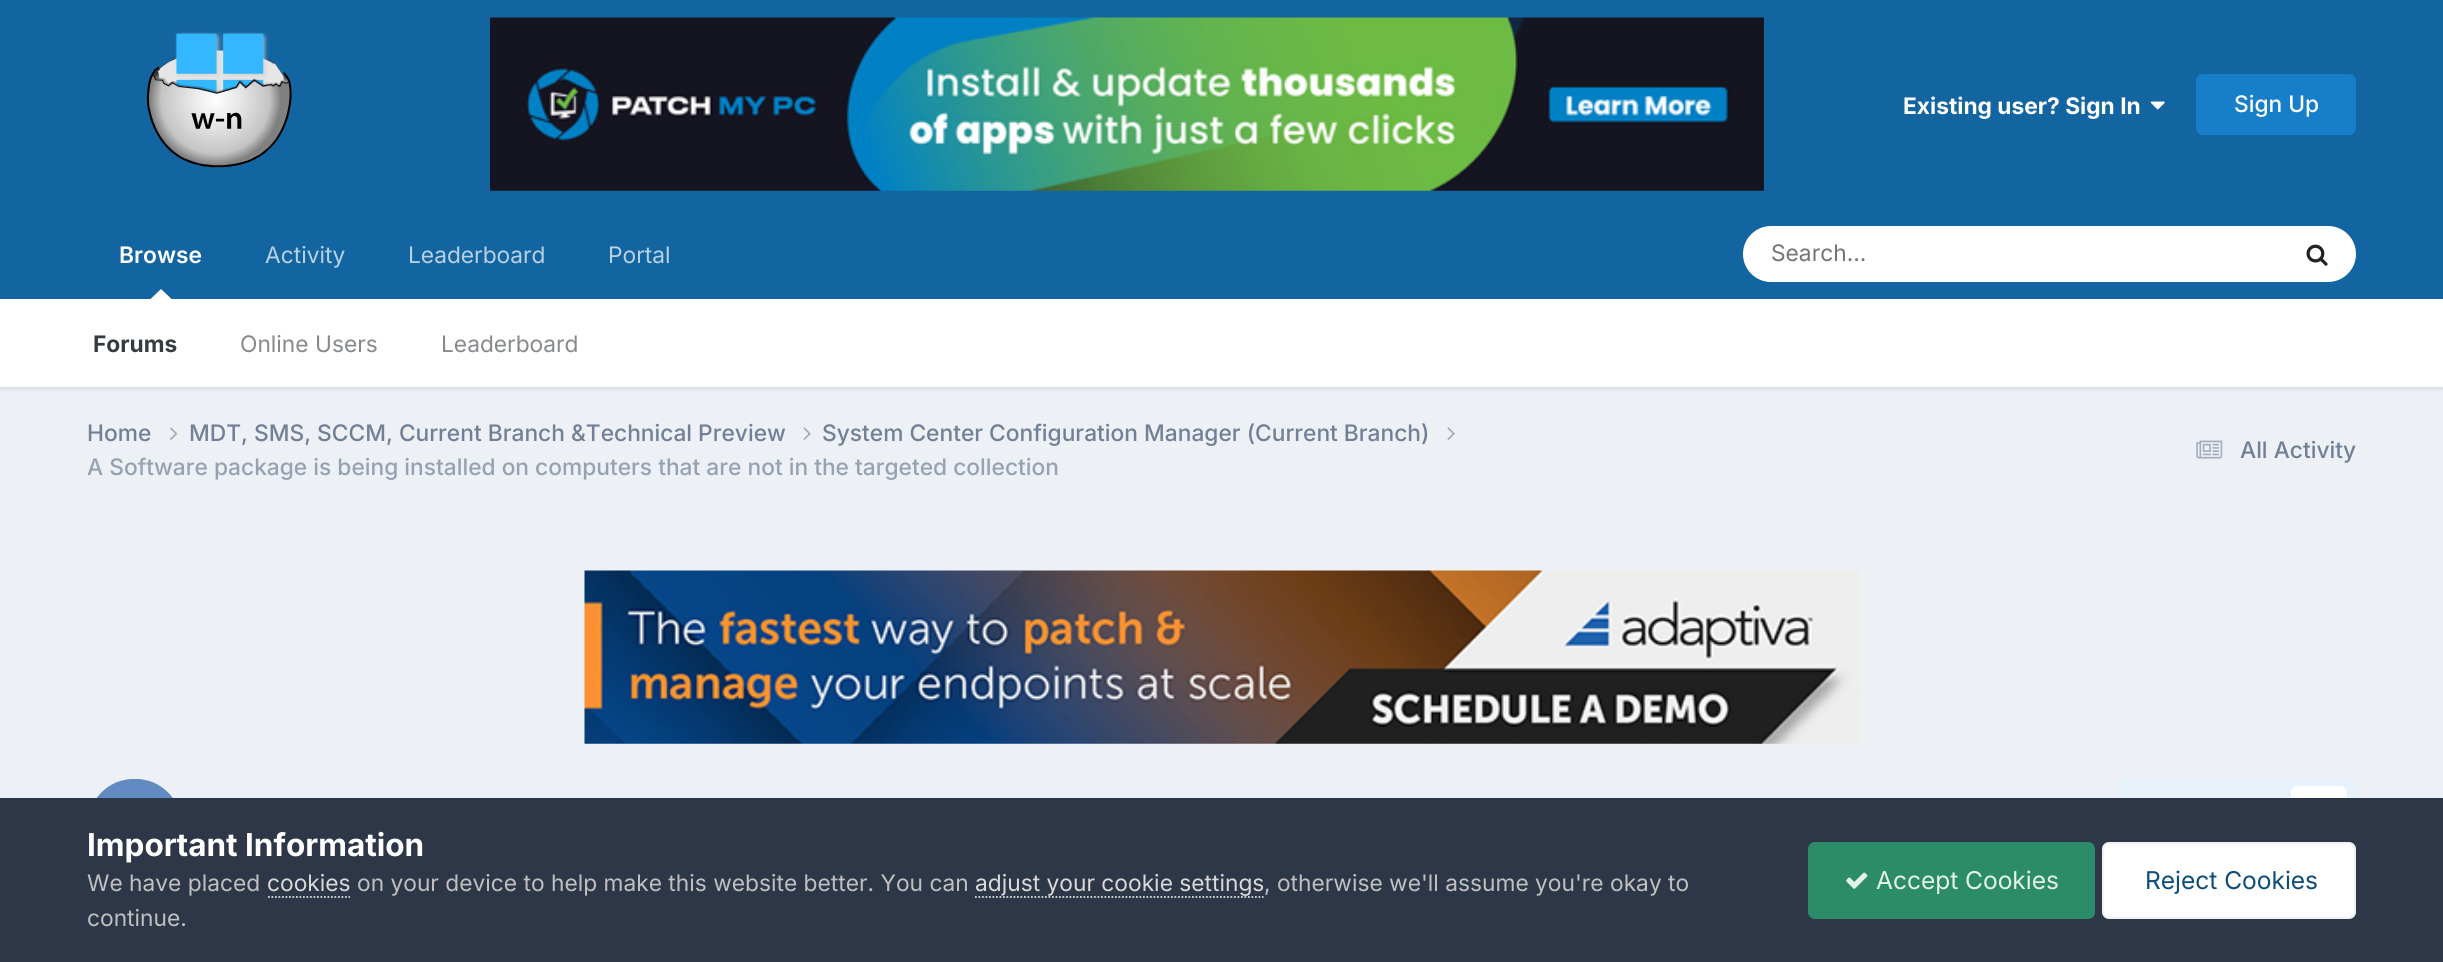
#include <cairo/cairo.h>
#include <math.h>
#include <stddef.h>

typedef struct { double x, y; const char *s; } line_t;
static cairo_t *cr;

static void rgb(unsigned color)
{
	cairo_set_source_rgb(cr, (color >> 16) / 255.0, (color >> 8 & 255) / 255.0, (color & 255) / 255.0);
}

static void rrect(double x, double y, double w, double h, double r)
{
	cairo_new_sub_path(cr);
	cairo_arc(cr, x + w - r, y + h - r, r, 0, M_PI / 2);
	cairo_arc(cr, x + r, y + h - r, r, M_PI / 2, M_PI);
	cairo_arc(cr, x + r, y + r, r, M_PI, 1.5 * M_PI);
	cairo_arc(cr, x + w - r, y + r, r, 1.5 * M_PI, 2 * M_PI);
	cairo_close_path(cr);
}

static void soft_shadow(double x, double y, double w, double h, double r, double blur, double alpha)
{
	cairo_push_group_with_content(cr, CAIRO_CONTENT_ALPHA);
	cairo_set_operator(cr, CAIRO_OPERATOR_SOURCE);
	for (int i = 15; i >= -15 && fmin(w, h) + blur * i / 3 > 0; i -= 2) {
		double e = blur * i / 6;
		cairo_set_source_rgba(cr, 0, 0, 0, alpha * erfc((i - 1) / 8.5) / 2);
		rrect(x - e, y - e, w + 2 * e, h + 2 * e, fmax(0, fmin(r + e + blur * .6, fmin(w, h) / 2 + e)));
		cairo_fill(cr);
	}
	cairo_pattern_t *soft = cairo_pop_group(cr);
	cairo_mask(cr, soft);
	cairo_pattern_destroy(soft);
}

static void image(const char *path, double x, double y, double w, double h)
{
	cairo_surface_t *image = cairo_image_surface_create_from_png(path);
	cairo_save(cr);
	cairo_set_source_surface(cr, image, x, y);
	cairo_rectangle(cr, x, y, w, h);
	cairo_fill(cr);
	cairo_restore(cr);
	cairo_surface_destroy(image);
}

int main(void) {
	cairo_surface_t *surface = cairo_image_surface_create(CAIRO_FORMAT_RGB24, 2443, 962);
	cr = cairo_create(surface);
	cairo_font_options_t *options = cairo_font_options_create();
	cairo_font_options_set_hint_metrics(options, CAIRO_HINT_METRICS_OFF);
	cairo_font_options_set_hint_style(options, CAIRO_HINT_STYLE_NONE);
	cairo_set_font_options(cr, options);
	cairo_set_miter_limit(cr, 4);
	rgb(0xedf0f4);
	cairo_paint(cr);
	rgb(0x1265a1);
	cairo_rectangle(cr, 0, 0, 2443, 299);
	cairo_fill(cr);
	image("img/1.png", 146, 31, 146, 137);
	image("img/2.png", 490, 17, 1274, 174);
	image("img/3.png", 2150, 101, 15, 9);
	rgb(0x177ec9);
	rrect(2196, 74, 160, 61, 7);
	cairo_fill(cr);
	rgb(0x000000);
	soft_shadow(0, 301, 2443, 88, 0, 2, 0.1);
	rgb(0xffffff);
	cairo_new_path(cr);
	cairo_move_to(cr, 171.5, 299);
	cairo_line_to(cr, 150.5, 299);
	cairo_line_to(cr, 161, 289);
	cairo_close_path(cr);
	cairo_fill(cr);
	rrect(1743, 226, 613, 56, 28);
	cairo_fill(cr);
	image("img/4.png", 2306, 244, 22, 22);
	cairo_rectangle(cr, 0, 299, 2443, 88);
	cairo_fill(cr);
	image("img/5.png", 170, 427, 8, 13);
	image("img/6.png", 803, 427, 8, 13);
	image("img/6.png", 1447, 427, 8, 13);
	image("img/7.png", 2196, 440, 27, 19);
	image("img/8.png", 584, 570, 1276, 174);
	image("img/9.png", 96, 779, 77, 19);
	rgb(0xe8f2fa);
	rrect(2116, 779, 240, 56, 7);
	cairo_fill(cr);
	rgb(0xffffff);
	rrect(2291, 786, 56, 42, 7);
	cairo_fill(cr);
	rgb(0x2d3748);
	cairo_rectangle(cr, 0, 798, 2443, 164);
	cairo_fill(cr);
	cairo_new_path(cr);
	cairo_move_to(cr, 268, 897);
	cairo_line_to(cr, 350, 897);
	rgb(0xdadada);
	cairo_set_line_width(cr, 1.8);
	cairo_set_dash(cr, (double[]){1.75, 1.75}, 2, 0);
	cairo_stroke(cr);
	cairo_new_path(cr);
	cairo_move_to(cr, 975, 897);
	cairo_line_to(cr, 1263.5, 897);
	cairo_stroke(cr);
	rgb(0x2c8c69);
	rrect(1808, 842, 287, 77, 7);
	cairo_fill(cr);
	image("img/10.png", 1846, 872, 22, 17);
	rgb(0xffffff);
	rrect(2102, 842, 254, 77, 7);
	cairo_fill(cr);
	rrect(2103, 843, 252, 75, 6);
	cairo_set_source_rgba(cr, 0.055, 0.298, 0.475, 0.07);
	cairo_set_line_width(cr, 2);
	cairo_set_dash(cr, NULL, 0, 0);
	cairo_stroke(cr);
	cairo_select_font_face(cr, "Inter", CAIRO_FONT_SLANT_NORMAL, CAIRO_FONT_WEIGHT_BOLD);
	cairo_set_font_size(cr, 22.75);
	rgb(0xffffff);
	cairo_move_to(cr, 1903, 114);
	cairo_show_text(cr, "Existing user? Sign In");
	cairo_select_font_face(cr, "Inter Medium", CAIRO_FONT_SLANT_NORMAL, CAIRO_FONT_WEIGHT_NORMAL);
	cairo_move_to(cr, 2234, 112);
	cairo_show_text(cr, "Sign Up");
	cairo_select_font_face(cr, "Inter", CAIRO_FONT_SLANT_NORMAL, CAIRO_FONT_WEIGHT_NORMAL);
	rgb(0xb8d1e3);
	cairo_move_to(cr, 265, 263);
	cairo_show_text(cr, "Activity");
	cairo_select_font_face(cr, "Inter SemiBold", CAIRO_FONT_SLANT_NORMAL, CAIRO_FONT_WEIGHT_NORMAL);
	rgb(0xffffff);
	cairo_move_to(cr, 119, 263);
	cairo_show_text(cr, "Browse");
	cairo_select_font_face(cr, "Inter", CAIRO_FONT_SLANT_NORMAL, CAIRO_FONT_WEIGHT_BOLD);
	rgb(0x353c41);
	cairo_move_to(cr, 93, 352);
	cairo_show_text(cr, "Forums");
	cairo_select_font_face(cr, "Inter", CAIRO_FONT_SLANT_NORMAL, CAIRO_FONT_WEIGHT_NORMAL);
	rgb(0x868a8d);
	cairo_move_to(cr, 240, 352);
	cairo_show_text(cr, "Online Users");
	cairo_move_to(cr, 441, 352);
	cairo_show_text(cr, "Leaderboard");
	rgb(0xb8d1e3);
	cairo_move_to(cr, 408, 263);
	cairo_show_text(cr, "Leaderboard");
	cairo_move_to(cr, 608, 263);
	cairo_show_text(cr, "Portal");
	rgb(0x757575);
	cairo_move_to(cr, 1771, 261);
	cairo_show_text(cr, "Search...");
	cairo_select_font_face(cr, "Inter Medium", CAIRO_FONT_SLANT_NORMAL, CAIRO_FONT_WEIGHT_NORMAL);
	rgb(0x718096);
	{
		static const line_t items[] = {
			{87, 441, "Home"},
			{189, 441, "MDT, SMS, SCCM, Current Branch &Technical Preview"},
			{822, 441, "System Center Configuration Manager (Current Branch)"},
		};
		for (size_t i = 0; i < sizeof items / sizeof *items; i++) {
			cairo_move_to(cr, items[i].x, items[i].y);
			cairo_show_text(cr, items[i].s);
		}
	}
	rgb(0x96a2b2);
	cairo_move_to(cr, 87, 475);
	cairo_show_text(cr, "A Software package is being installed on computers that are not in the targeted collection");
	rgb(0x718096);
	cairo_move_to(cr, 2240, 458);
	cairo_show_text(cr, "All Activity");
	cairo_select_font_face(cr, "Inter", CAIRO_FONT_SLANT_NORMAL, CAIRO_FONT_WEIGHT_BOLD);
	cairo_set_font_size(cr, 31.5);
	rgb(0xffffff);
	cairo_move_to(cr, 87, 856);
	cairo_show_text(cr, "Important Information");
	cairo_select_font_face(cr, "Inter", CAIRO_FONT_SLANT_NORMAL, CAIRO_FONT_WEIGHT_NORMAL);
	cairo_set_font_size(cr, 22.75);
	rgb(0xc0c0c0);
	cairo_move_to(cr, 87, 891);
	cairo_show_text(cr, "We have placed");
	rgb(0xdadada);
	cairo_move_to(cr, 267, 891);
	cairo_show_text(cr, "cookies");
	rgb(0xc0c0c0);
	cairo_move_to(cr, 357, 891);
	cairo_show_text(cr, "on your device to help make this website better. You can");
	rgb(0xdadada);
	cairo_move_to(cr, 975, 891);
	cairo_show_text(cr, "adjust your cookie settings");
	rgb(0xc0c0c0);
	cairo_move_to(cr, 1264, 891);
	cairo_show_text(cr, ", otherwise we'll assume you're okay to");
	cairo_move_to(cr, 87, 926);
	cairo_show_text(cr, "continue.");
	cairo_set_font_size(cr, 24.5);
	rgb(0xe3f3ec);
	cairo_move_to(cr, 1876, 889);
	cairo_show_text(cr, "Accept Cookies");
	rgb(0x0e4c79);
	cairo_move_to(cr, 2145, 889);
	cairo_show_text(cr, "Reject Cookies");
	cairo_surface_write_to_png(surface, "page.png");
	cairo_font_options_destroy(options);
	cairo_destroy(cr);
	cairo_surface_destroy(surface);
	return 0;
}
